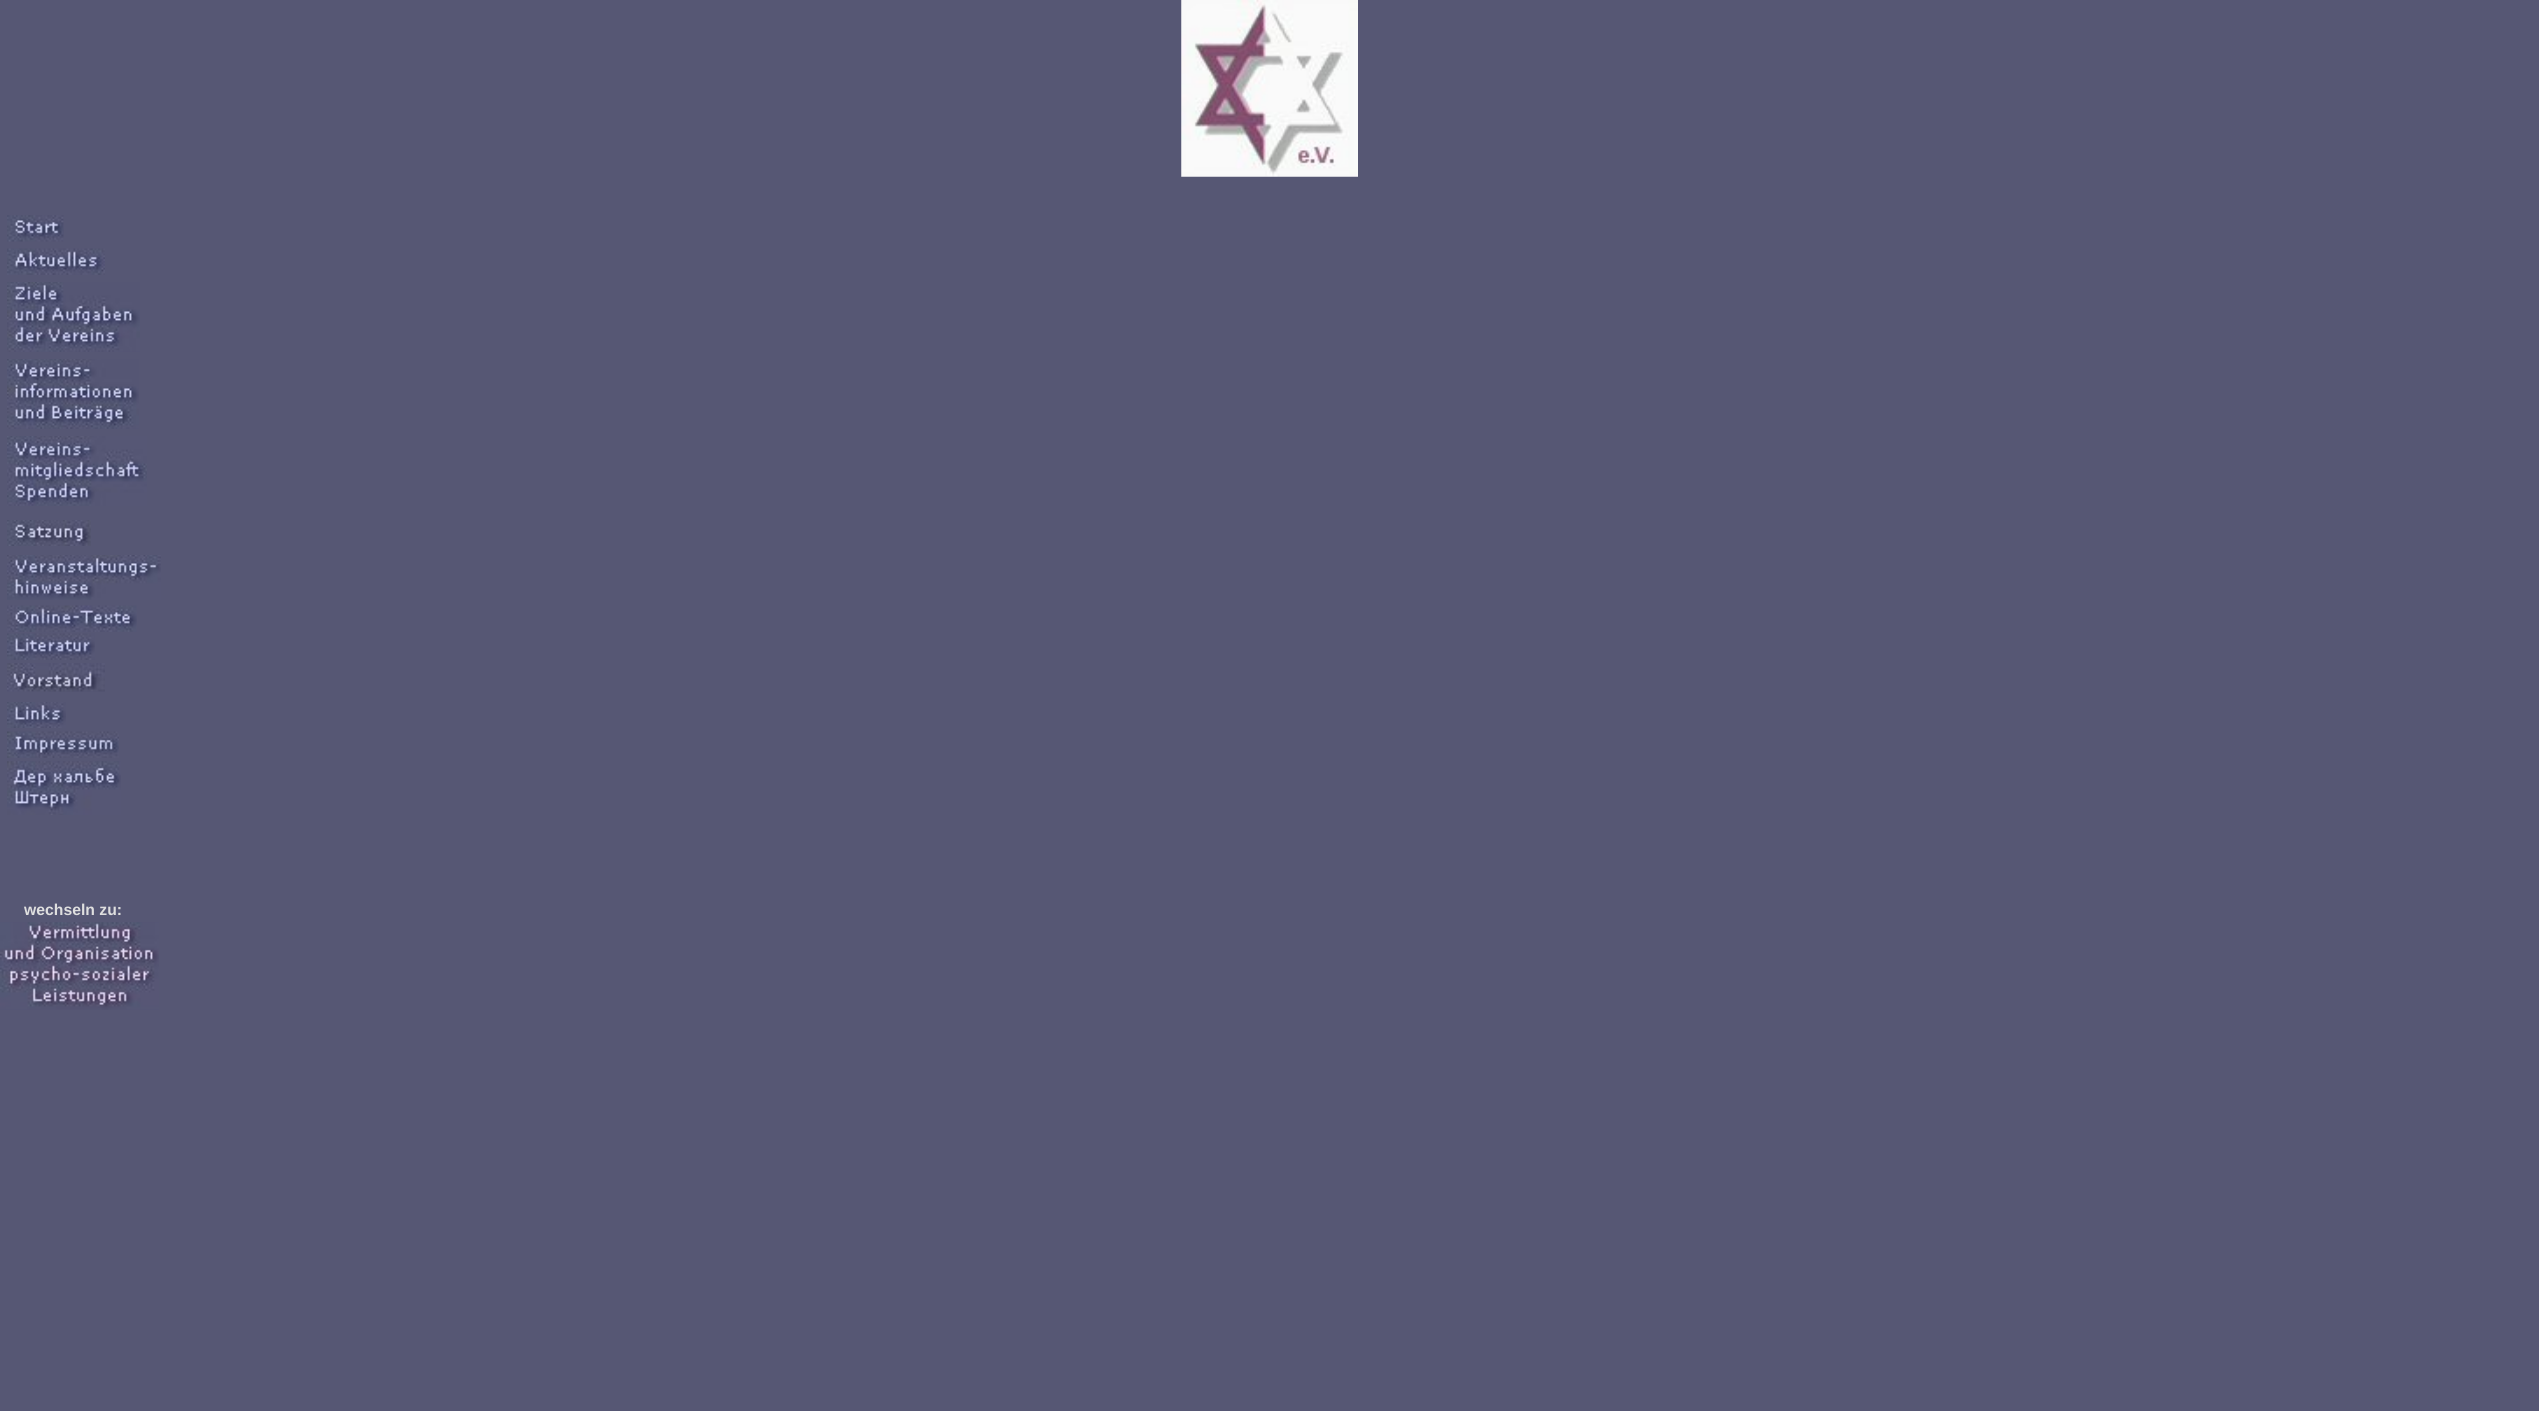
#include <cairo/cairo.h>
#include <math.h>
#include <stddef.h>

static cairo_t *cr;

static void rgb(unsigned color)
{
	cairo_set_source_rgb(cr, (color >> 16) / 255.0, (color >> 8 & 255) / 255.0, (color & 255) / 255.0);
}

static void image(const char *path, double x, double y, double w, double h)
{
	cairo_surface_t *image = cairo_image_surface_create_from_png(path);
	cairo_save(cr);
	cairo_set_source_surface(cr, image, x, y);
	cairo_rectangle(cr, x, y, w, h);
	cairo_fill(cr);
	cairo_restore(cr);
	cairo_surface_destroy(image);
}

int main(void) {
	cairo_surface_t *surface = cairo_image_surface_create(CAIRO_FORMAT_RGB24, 2539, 1411);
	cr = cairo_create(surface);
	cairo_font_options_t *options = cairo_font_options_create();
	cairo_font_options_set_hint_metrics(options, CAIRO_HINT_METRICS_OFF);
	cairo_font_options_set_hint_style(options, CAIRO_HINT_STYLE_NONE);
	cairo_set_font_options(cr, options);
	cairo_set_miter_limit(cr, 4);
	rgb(0x565774);
	cairo_paint(cr);
	image("img/1.png", 1181, 0, 177, 177);
	image("img/2.png", 7, 215, 57, 27);
	image("img/3.png", 7, 248, 98, 27);
	image("img/4.png", 7, 282, 133, 70);
	image("img/5.png", 7, 359, 132, 70);
	image("img/6.png", 7, 436, 140, 70);
	image("img/7.png", 7, 520, 84, 26);
	image("img/8.png", 7, 555, 154, 45);
	image("img/9.png", 7, 605, 130, 27);
	image("img/10.png", 7, 633, 88, 27);
	image("img/11.png", 7, 663, 98, 29);
	image("img/12.png", 7, 702, 59, 26);
	image("img/13.png", 7, 731, 112, 27);
	image("img/14.png", 7, 761, 114, 54);
	image("img/15.png", 0, 922, 159, 88);
	cairo_select_font_face(cr, "Liberation Sans", CAIRO_FONT_SLANT_NORMAL, CAIRO_FONT_WEIGHT_BOLD);
	cairo_set_font_size(cr, 15.75);
	rgb(0xdfdfdf);
	cairo_move_to(cr, 24, 915);
	cairo_show_text(cr, "wechseln zu:");
	cairo_surface_write_to_png(surface, "page.png");
	cairo_font_options_destroy(options);
	cairo_destroy(cr);
	cairo_surface_destroy(surface);
	return 0;
}
